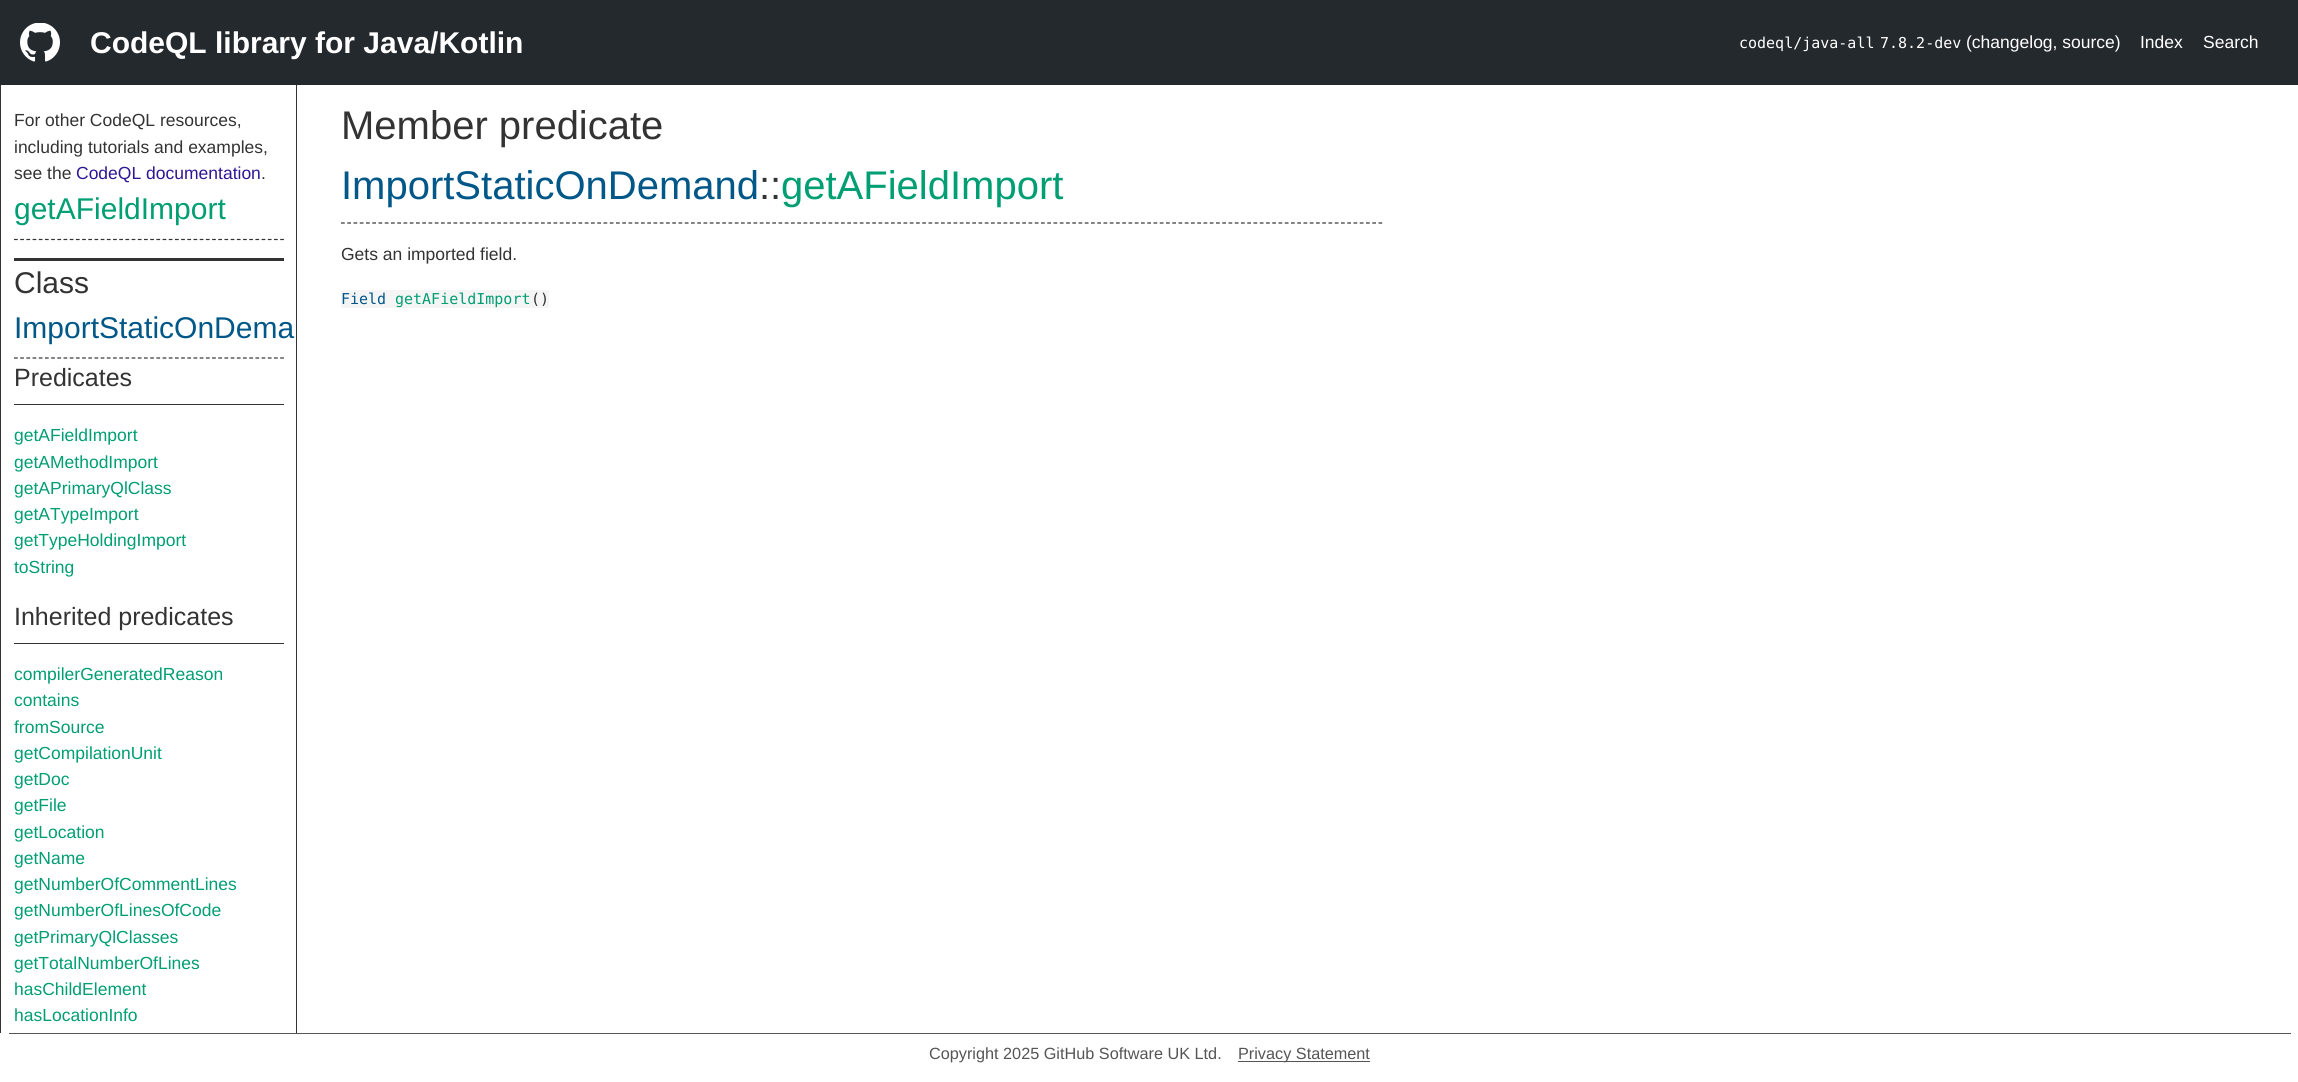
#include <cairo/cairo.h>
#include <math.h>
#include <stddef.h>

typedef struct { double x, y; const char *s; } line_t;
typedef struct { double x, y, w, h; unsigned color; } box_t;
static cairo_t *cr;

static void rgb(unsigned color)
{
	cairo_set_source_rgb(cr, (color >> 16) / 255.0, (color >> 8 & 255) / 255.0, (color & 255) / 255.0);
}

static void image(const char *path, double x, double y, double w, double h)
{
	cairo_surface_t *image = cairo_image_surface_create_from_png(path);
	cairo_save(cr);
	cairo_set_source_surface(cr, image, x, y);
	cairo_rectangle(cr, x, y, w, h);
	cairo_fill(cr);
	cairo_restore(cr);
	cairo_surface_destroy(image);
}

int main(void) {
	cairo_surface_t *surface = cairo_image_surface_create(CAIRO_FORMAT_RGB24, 2298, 1082);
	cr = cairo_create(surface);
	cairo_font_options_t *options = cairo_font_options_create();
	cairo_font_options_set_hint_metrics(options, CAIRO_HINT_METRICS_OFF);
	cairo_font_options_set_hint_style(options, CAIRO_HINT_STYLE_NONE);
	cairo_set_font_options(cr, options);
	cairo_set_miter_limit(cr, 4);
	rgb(0xffffff);
	cairo_paint(cr);
	rgb(0x24292e);
	cairo_rectangle(cr, 0, 0, 2298, 85);
	cairo_fill(cr);
	image("img/1.png", 20, 23, 40, 39);
	{
		static const box_t items[] = {
			{296, 85, 1, 948, 0x333333},
			{0, 85, 1, 948, 0x333333},
			{14, 258, 270, 3, 0x333333},
		};
		for (size_t i = 0; i < sizeof items / sizeof *items; i++) {
			rgb(items[i].color);
			cairo_rectangle(cr, items[i].x, items[i].y, items[i].w, items[i].h);
			cairo_fill(cr);
		}
	}
	cairo_new_path(cr);
	cairo_move_to(cr, 14, 239.5);
	cairo_line_to(cr, 284, 239.5);
	cairo_set_line_width(cr, 1.2);
	cairo_set_dash(cr, (double[]){3.75, 2.44}, 2, 0);
	cairo_stroke(cr);
	cairo_new_path(cr);
	cairo_move_to(cr, 14, 358);
	cairo_line_to(cr, 284, 358);
	cairo_stroke(cr);
	cairo_rectangle(cr, 14, 404, 270, 1);
	cairo_fill(cr);
	cairo_rectangle(cr, 14, 643, 270, 1);
	cairo_fill(cr);
	cairo_new_path(cr);
	cairo_move_to(cr, 341, 223);
	cairo_line_to(cr, 1382.5, 223);
	cairo_set_dash(cr, (double[]){3.75, 2.5}, 2, 0);
	cairo_stroke(cr);
	{
		static const box_t items[] = {
			{341, 290, 208, 18, 0xf5f5f5},
			{9, 1033, 2282, 1, 0x555555},
			{1238, 1061, 132, 1, 0x555555},
		};
		for (size_t i = 0; i < sizeof items / sizeof *items; i++) {
			rgb(items[i].color);
			cairo_rectangle(cr, items[i].x, items[i].y, items[i].w, items[i].h);
			cairo_fill(cr);
		}
	}
	cairo_select_font_face(cr, "Liberation Sans", CAIRO_FONT_SLANT_NORMAL, CAIRO_FONT_WEIGHT_BOLD);
	cairo_set_font_size(cr, 30);
	rgb(0xffffff);
	cairo_move_to(cr, 90, 53);
	cairo_show_text(cr, "CodeQL library for Java/Kotlin");
	cairo_select_font_face(cr, "DejaVu Sans Mono", CAIRO_FONT_SLANT_NORMAL, CAIRO_FONT_WEIGHT_NORMAL);
	cairo_set_font_size(cr, 15);
	cairo_move_to(cr, 1739, 48);
	cairo_show_text(cr, "codeql/java-all");
	cairo_move_to(cr, 1880, 48);
	cairo_show_text(cr, "7.8.2-dev");
	cairo_select_font_face(cr, "Liberation Sans", CAIRO_FONT_SLANT_NORMAL, CAIRO_FONT_WEIGHT_NORMAL);
	cairo_set_font_size(cr, 17.5);
	{
		static const line_t items[] = {
			{1966, 48, "(changelog, source)"},
			{2140, 48, "Index"},
			{2203, 48, "Search"},
		};
		for (size_t i = 0; i < sizeof items / sizeof *items; i++) {
			cairo_move_to(cr, items[i].x, items[i].y);
			cairo_show_text(cr, items[i].s);
		}
	}
	rgb(0x333333);
	{
		static const line_t items[] = {
			{14, 126, "For other CodeQL resources,"},
			{14, 153, "including tutorials and examples,"},
			{14, 179, "see the"},
		};
		for (size_t i = 0; i < sizeof items / sizeof *items; i++) {
			cairo_move_to(cr, items[i].x, items[i].y);
			cairo_show_text(cr, items[i].s);
		}
	}
	rgb(0x2f1695);
	cairo_move_to(cr, 76, 179);
	cairo_show_text(cr, "CodeQL documentation");
	rgb(0x333333);
	cairo_move_to(cr, 261, 179);
	cairo_show_text(cr, ".");
	cairo_set_font_size(cr, 30);
	rgb(0x009e73);
	cairo_move_to(cr, 14, 219);
	cairo_show_text(cr, "getAFieldImport");
	rgb(0x333333);
	cairo_move_to(cr, 14, 293);
	cairo_show_text(cr, "Class");
	rgb(0x005788);
	cairo_move_to(cr, 14, 338);
	cairo_show_text(cr, "ImportStaticOnDema");
	cairo_set_font_size(cr, 25);
	rgb(0x333333);
	cairo_move_to(cr, 14, 386);
	cairo_show_text(cr, "Predicates");
	cairo_set_font_size(cr, 17.5);
	rgb(0x009e73);
	{
		static const line_t items[] = {
			{14, 441, "getAFieldImport"},
			{14, 468, "getAMethodImport"},
			{14, 494, "getAPrimaryQlClass"},
			{14, 520, "getATypeImport"},
			{14, 546, "getTypeHoldingImport"},
			{14, 573, "toString"},
		};
		for (size_t i = 0; i < sizeof items / sizeof *items; i++) {
			cairo_move_to(cr, items[i].x, items[i].y);
			cairo_show_text(cr, items[i].s);
		}
	}
	cairo_set_font_size(cr, 25);
	rgb(0x333333);
	cairo_move_to(cr, 14, 625);
	cairo_show_text(cr, "Inherited predicates");
	cairo_set_font_size(cr, 17.5);
	rgb(0x009e73);
	{
		static const line_t items[] = {
			{14, 680, "compilerGeneratedReason"},
			{14, 706, "contains"},
			{14, 733, "fromSource"},
			{14, 759, "getCompilationUnit"},
			{14, 785, "getDoc"},
			{14, 811, "getFile"},
			{14, 838, "getLocation"},
			{14, 864, "getName"},
			{14, 890, "getNumberOfCommentLines"},
			{14, 916, "getNumberOfLinesOfCode"},
			{14, 943, "getPrimaryQlClasses"},
			{14, 969, "getTotalNumberOfLines"},
			{14, 995, "hasChildElement"},
			{14, 1021, "hasLocationInfo"},
		};
		for (size_t i = 0; i < sizeof items / sizeof *items; i++) {
			cairo_move_to(cr, items[i].x, items[i].y);
			cairo_show_text(cr, items[i].s);
		}
	}
	cairo_set_font_size(cr, 40);
	rgb(0x333333);
	cairo_move_to(cr, 341, 139);
	cairo_show_text(cr, "Member predicate");
	rgb(0x005788);
	cairo_move_to(cr, 341, 199);
	cairo_show_text(cr, "ImportStaticOnDemand");
	rgb(0x333333);
	cairo_move_to(cr, 759, 199);
	cairo_show_text(cr, "::");
	rgb(0x009e73);
	cairo_move_to(cr, 781, 199);
	cairo_show_text(cr, "getAFieldImport");
	cairo_set_font_size(cr, 17.5);
	rgb(0x333333);
	cairo_move_to(cr, 341, 260);
	cairo_show_text(cr, "Gets an imported field.");
	cairo_select_font_face(cr, "DejaVu Sans Mono", CAIRO_FONT_SLANT_NORMAL, CAIRO_FONT_WEIGHT_NORMAL);
	cairo_set_font_size(cr, 15);
	rgb(0x005788);
	cairo_move_to(cr, 341, 304);
	cairo_show_text(cr, "Field");
	rgb(0x009e73);
	cairo_move_to(cr, 395, 304);
	cairo_show_text(cr, "getAFieldImport");
	rgb(0x333333);
	cairo_move_to(cr, 531, 304);
	cairo_show_text(cr, "()");
	cairo_select_font_face(cr, "Liberation Sans", CAIRO_FONT_SLANT_NORMAL, CAIRO_FONT_WEIGHT_NORMAL);
	cairo_set_font_size(cr, 16.25);
	rgb(0x555555);
	cairo_move_to(cr, 929, 1059);
	cairo_show_text(cr, "Copyright 2025 GitHub Software UK Ltd.");
	cairo_move_to(cr, 1238, 1059);
	cairo_show_text(cr, "Privacy Statement");
	cairo_surface_write_to_png(surface, "page.png");
	cairo_font_options_destroy(options);
	cairo_destroy(cr);
	cairo_surface_destroy(surface);
	return 0;
}
